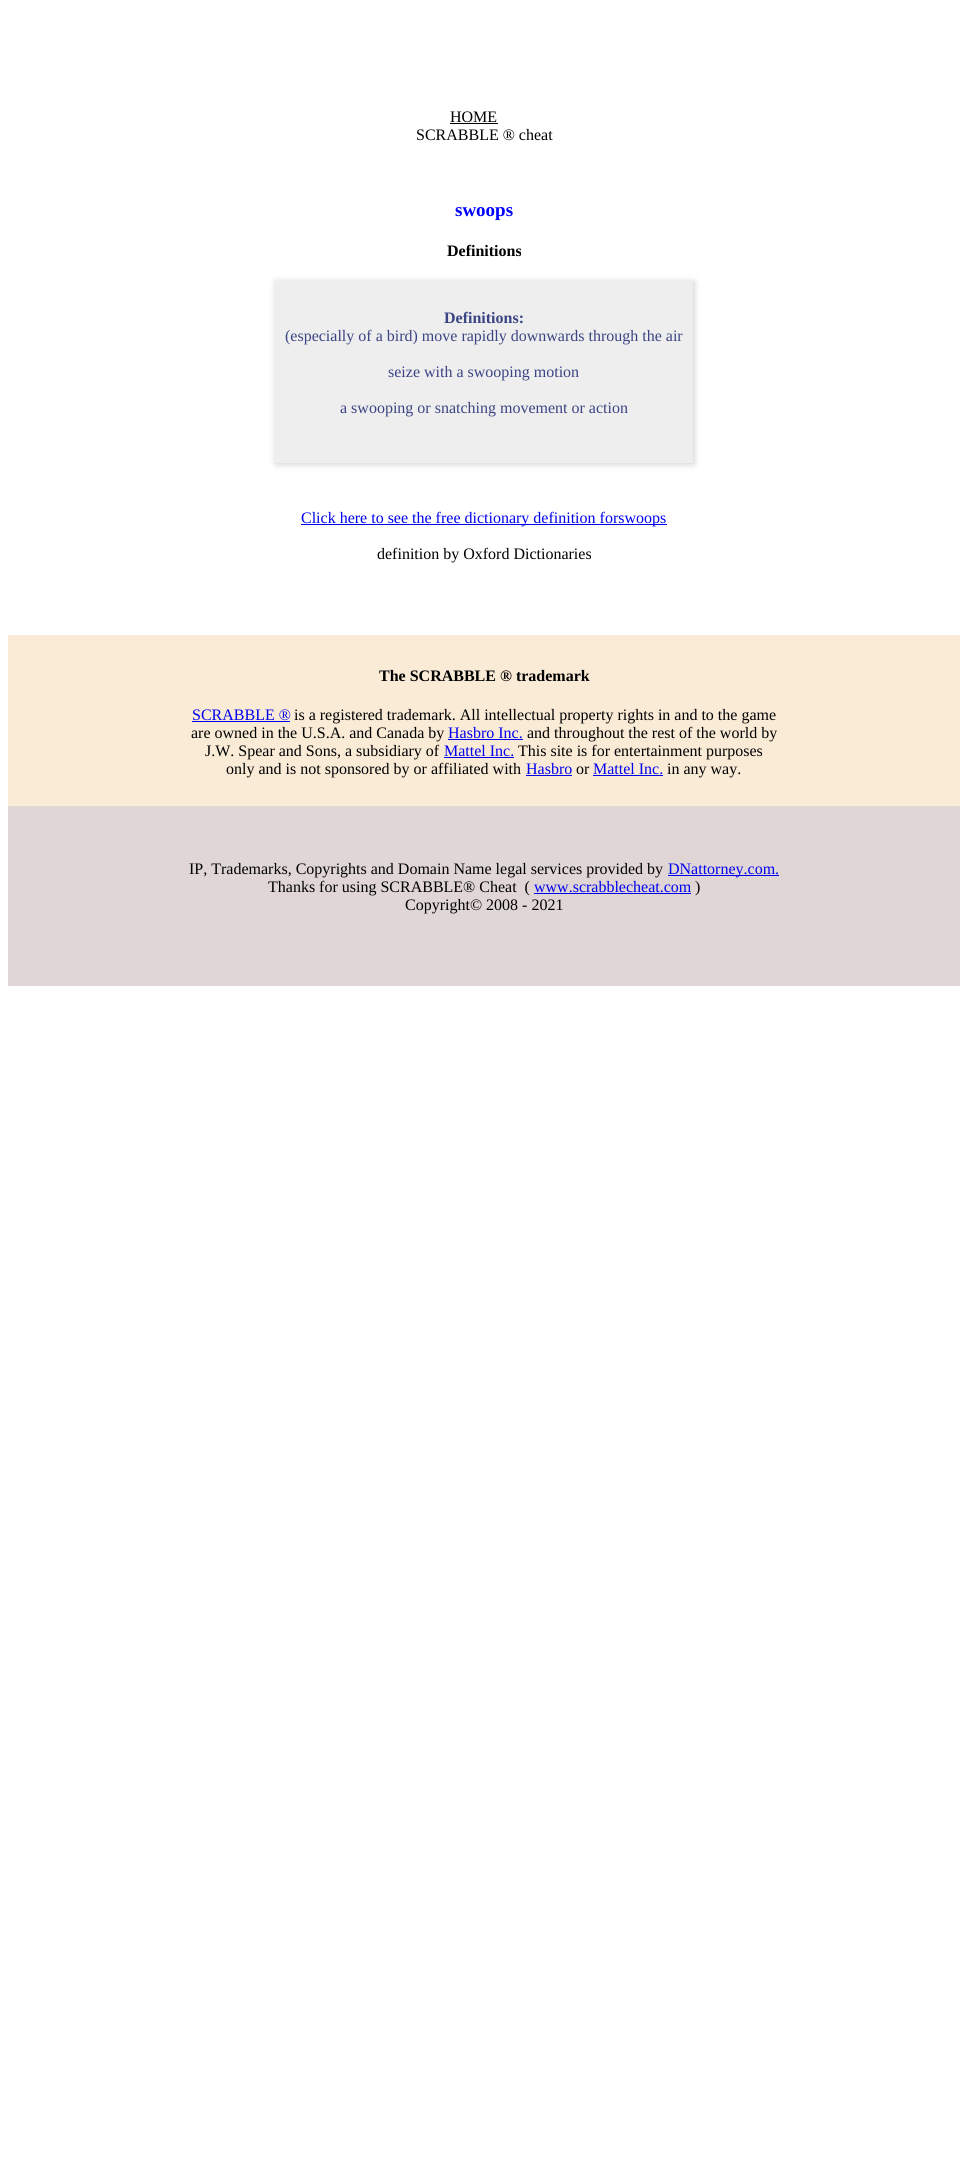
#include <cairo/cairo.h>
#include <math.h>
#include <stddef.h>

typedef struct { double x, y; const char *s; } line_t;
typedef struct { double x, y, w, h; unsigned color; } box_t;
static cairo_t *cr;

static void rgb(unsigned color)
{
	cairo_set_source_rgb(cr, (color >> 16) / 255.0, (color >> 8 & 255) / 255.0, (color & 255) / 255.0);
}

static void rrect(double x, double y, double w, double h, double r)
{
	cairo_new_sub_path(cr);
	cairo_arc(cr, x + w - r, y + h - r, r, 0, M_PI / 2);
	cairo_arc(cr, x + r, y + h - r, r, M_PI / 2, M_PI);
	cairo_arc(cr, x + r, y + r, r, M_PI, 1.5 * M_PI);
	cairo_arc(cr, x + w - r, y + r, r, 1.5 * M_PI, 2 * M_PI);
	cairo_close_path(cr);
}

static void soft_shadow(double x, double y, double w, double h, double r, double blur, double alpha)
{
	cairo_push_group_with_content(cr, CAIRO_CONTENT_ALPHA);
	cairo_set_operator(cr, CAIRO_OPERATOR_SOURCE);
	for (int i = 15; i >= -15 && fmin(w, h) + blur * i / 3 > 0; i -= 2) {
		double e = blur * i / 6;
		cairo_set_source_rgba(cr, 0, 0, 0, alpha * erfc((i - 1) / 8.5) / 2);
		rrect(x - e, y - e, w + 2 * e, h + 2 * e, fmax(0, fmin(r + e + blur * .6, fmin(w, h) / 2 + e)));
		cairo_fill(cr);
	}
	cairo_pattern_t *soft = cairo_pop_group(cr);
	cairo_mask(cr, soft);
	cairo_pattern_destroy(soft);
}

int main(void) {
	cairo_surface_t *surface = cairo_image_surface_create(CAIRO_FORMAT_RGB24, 968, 2157);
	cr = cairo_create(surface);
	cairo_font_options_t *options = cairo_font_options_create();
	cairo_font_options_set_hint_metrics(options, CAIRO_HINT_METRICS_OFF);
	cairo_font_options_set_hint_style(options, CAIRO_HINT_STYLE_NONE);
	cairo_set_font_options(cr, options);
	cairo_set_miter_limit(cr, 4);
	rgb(0xffffff);
	cairo_paint(cr);
	rgb(0x000000);
	cairo_rectangle(cr, 450, 123, 48, 1);
	cairo_fill(cr);
	rgb(0x000000);
	soft_shadow(276, 282, 418, 182, 0, 3.5, 0.2);
	{
		static const box_t items[] = {
			{275, 281, 418, 182, 0xeeeeee},
			{301, 524, 366, 1, 0x0000ee},
			{8, 635, 952, 171, 0xfaebd7},
			{192, 721, 98, 1, 0x0000ee},
			{448, 739, 75, 1, 0x0000ee},
			{444, 757, 70, 1, 0x0000ee},
			{526, 775, 46, 1, 0x0000ee},
			{593, 775, 70, 1, 0x0000ee},
			{8, 806, 952, 180, 0xe0d6d6},
			{668, 875, 111, 1, 0x0000ee},
			{534, 893, 157, 1, 0x0000ee},
		};
		for (size_t i = 0; i < sizeof items / sizeof *items; i++) {
			rgb(items[i].color);
			cairo_rectangle(cr, items[i].x, items[i].y, items[i].w, items[i].h);
			cairo_fill(cr);
		}
	}
	cairo_select_font_face(cr, "Liberation Serif", CAIRO_FONT_SLANT_NORMAL, CAIRO_FONT_WEIGHT_NORMAL);
	cairo_set_font_size(cr, 16);
	rgb(0x000000);
	cairo_move_to(cr, 450, 122);
	cairo_show_text(cr, "HOME");
	cairo_move_to(cr, 416, 140);
	cairo_show_text(cr, "SCRABBLE ® cheat");
	cairo_select_font_face(cr, "Liberation Serif", CAIRO_FONT_SLANT_NORMAL, CAIRO_FONT_WEIGHT_BOLD);
	cairo_set_font_size(cr, 19);
	rgb(0x0000ff);
	cairo_move_to(cr, 455, 216);
	cairo_show_text(cr, "swoops");
	cairo_set_font_size(cr, 16);
	rgb(0x000000);
	cairo_move_to(cr, 447, 256);
	cairo_show_text(cr, "Definitions");
	rgb(0x3b4483);
	cairo_move_to(cr, 444, 323);
	cairo_show_text(cr, "Definitions:");
	cairo_select_font_face(cr, "Liberation Serif", CAIRO_FONT_SLANT_NORMAL, CAIRO_FONT_WEIGHT_NORMAL);
	{
		static const line_t items[] = {
			{285, 341, "(especially of a bird) move rapidly downwards through the air"},
			{388, 377, "seize with a swooping motion"},
			{340, 413, "a swooping or snatching movement or action"},
		};
		for (size_t i = 0; i < sizeof items / sizeof *items; i++) {
			cairo_move_to(cr, items[i].x, items[i].y);
			cairo_show_text(cr, items[i].s);
		}
	}
	rgb(0x0000ee);
	cairo_move_to(cr, 301, 523);
	cairo_show_text(cr, "Click here to see the free dictionary definition forswoops");
	rgb(0x000000);
	cairo_move_to(cr, 377, 559);
	cairo_show_text(cr, "definition by Oxford Dictionaries");
	cairo_select_font_face(cr, "Liberation Serif", CAIRO_FONT_SLANT_NORMAL, CAIRO_FONT_WEIGHT_BOLD);
	cairo_move_to(cr, 379, 681);
	cairo_show_text(cr, "The SCRABBLE ® trademark");
	cairo_select_font_face(cr, "Liberation Serif", CAIRO_FONT_SLANT_NORMAL, CAIRO_FONT_WEIGHT_NORMAL);
	rgb(0x0000ee);
	cairo_move_to(cr, 192, 720);
	cairo_show_text(cr, "SCRABBLE ®");
	rgb(0x000000);
	cairo_move_to(cr, 294, 720);
	cairo_show_text(cr, "is a registered trademark. All intellectual property rights in and to the game");
	cairo_move_to(cr, 191, 738);
	cairo_show_text(cr, "are owned in the U.S.A. and Canada by");
	rgb(0x0000ee);
	cairo_move_to(cr, 448, 738);
	cairo_show_text(cr, "Hasbro Inc.");
	rgb(0x000000);
	cairo_move_to(cr, 527, 738);
	cairo_show_text(cr, "and throughout the rest of the world by");
	cairo_move_to(cr, 205, 756);
	cairo_show_text(cr, "J.W. Spear and Sons, a subsidiary of");
	rgb(0x0000ee);
	cairo_move_to(cr, 444, 756);
	cairo_show_text(cr, "Mattel Inc.");
	rgb(0x000000);
	cairo_move_to(cr, 518, 756);
	cairo_show_text(cr, "This site is for entertainment purposes");
	cairo_move_to(cr, 226, 774);
	cairo_show_text(cr, "only and is not sponsored by or affiliated with");
	rgb(0x0000ee);
	cairo_move_to(cr, 526, 774);
	cairo_show_text(cr, "Hasbro");
	rgb(0x000000);
	cairo_move_to(cr, 576, 774);
	cairo_show_text(cr, "or");
	rgb(0x0000ee);
	cairo_move_to(cr, 593, 774);
	cairo_show_text(cr, "Mattel Inc.");
	rgb(0x000000);
	cairo_move_to(cr, 667, 774);
	cairo_show_text(cr, "in any way.");
	cairo_move_to(cr, 189, 874);
	cairo_show_text(cr, "IP, Trademarks, Copyrights and Domain Name legal services provided by");
	rgb(0x0000ee);
	cairo_move_to(cr, 668, 874);
	cairo_show_text(cr, "DNattorney.com.");
	rgb(0x000000);
	cairo_move_to(cr, 268, 892);
	cairo_show_text(cr, "Thanks for using SCRABBLE® Cheat  (");
	rgb(0x0000ee);
	cairo_move_to(cr, 534, 892);
	cairo_show_text(cr, "www.scrabblecheat.com");
	rgb(0x000000);
	cairo_move_to(cr, 695, 892);
	cairo_show_text(cr, ")");
	cairo_move_to(cr, 405, 910);
	cairo_show_text(cr, "Copyright© 2008 - 2021");
	cairo_surface_write_to_png(surface, "page.png");
	cairo_font_options_destroy(options);
	cairo_destroy(cr);
	cairo_surface_destroy(surface);
	return 0;
}
